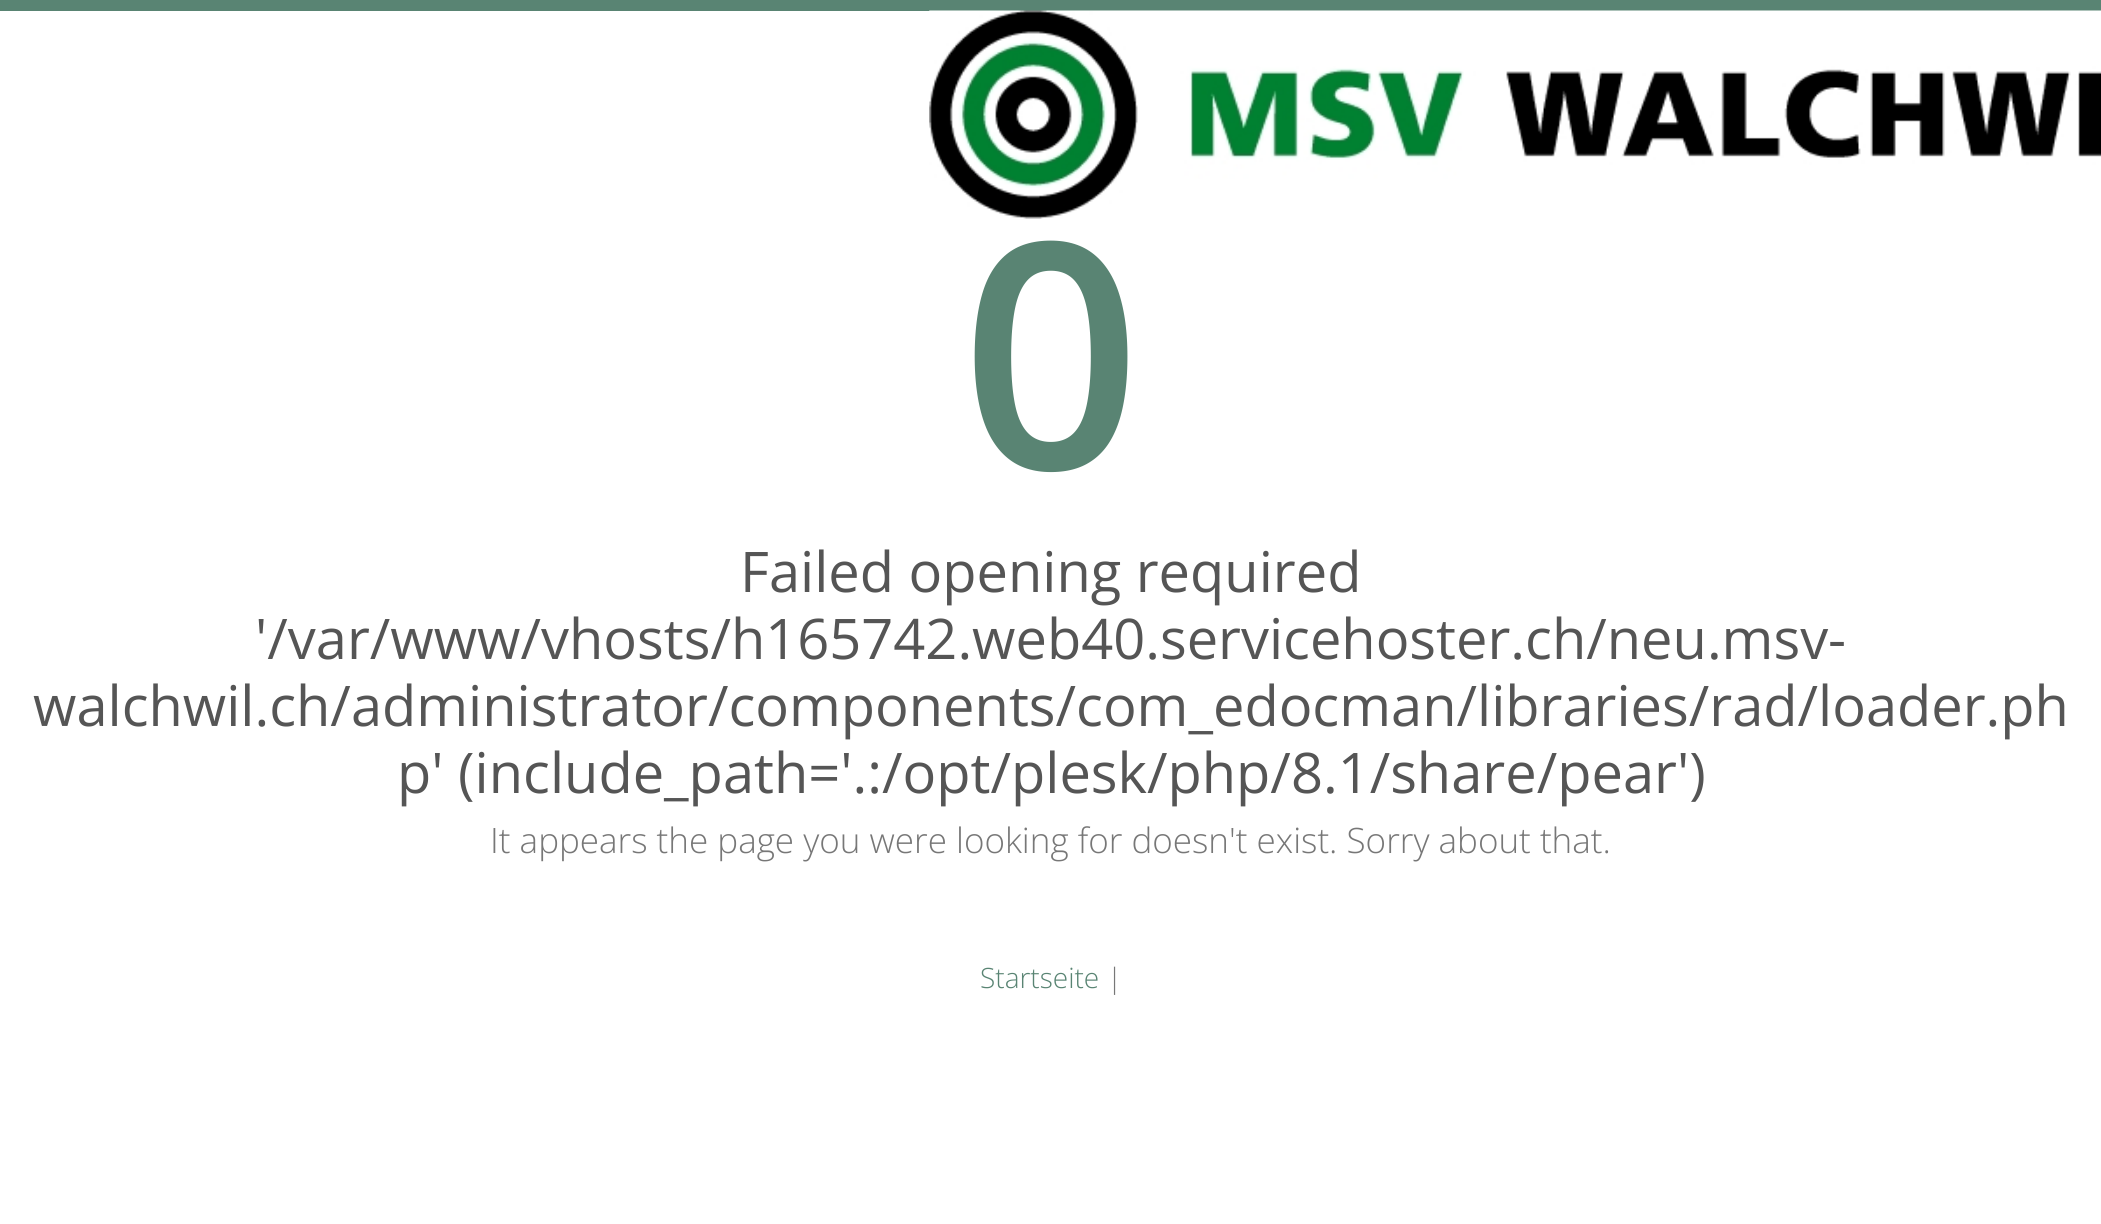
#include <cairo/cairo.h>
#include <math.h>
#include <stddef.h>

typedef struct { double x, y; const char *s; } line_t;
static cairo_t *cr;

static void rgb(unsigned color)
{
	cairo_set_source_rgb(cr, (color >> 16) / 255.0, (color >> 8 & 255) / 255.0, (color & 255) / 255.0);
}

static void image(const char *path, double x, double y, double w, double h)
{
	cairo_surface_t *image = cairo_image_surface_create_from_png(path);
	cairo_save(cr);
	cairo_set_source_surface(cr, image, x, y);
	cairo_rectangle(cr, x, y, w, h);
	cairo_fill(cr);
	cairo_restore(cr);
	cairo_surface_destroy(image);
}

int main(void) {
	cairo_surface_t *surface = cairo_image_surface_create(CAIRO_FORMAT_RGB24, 2101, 1224);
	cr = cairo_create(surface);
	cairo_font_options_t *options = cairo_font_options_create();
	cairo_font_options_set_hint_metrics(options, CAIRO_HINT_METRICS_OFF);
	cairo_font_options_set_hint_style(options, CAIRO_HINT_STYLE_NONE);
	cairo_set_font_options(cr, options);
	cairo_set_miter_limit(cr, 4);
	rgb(0xffffff);
	cairo_paint(cr);
	rgb(0x598473);
	cairo_rectangle(cr, 0, 0, 2101, 11);
	cairo_fill(cr);
	image("img/1.png", 929, 10, 1172, 209);
	cairo_select_font_face(cr, "Open Sans SemiBold", CAIRO_FONT_SLANT_NORMAL, CAIRO_FONT_WEIGHT_NORMAL);
	cairo_set_font_size(cr, 315);
	cairo_move_to(cr, 961, 469);
	cairo_show_text(cr, "0");
	cairo_select_font_face(cr, "Open Sans", CAIRO_FONT_SLANT_NORMAL, CAIRO_FONT_WEIGHT_NORMAL);
	cairo_set_font_size(cr, 56);
	rgb(0x555555);
	{
		static const line_t items[] = {
			{740, 592, "Failed opening required"},
			{255, 659, "'/var/www/vhosts/h165742.web40.servicehoster.ch/neu.msv-"},
			{33, 726, "walchwil.ch/administrator/components/com_edocman/libraries/rad/loader.ph"},
			{397, 793, "p' (include_path='.:/opt/plesk/php/8.1/share/pear')"},
		};
		for (size_t i = 0; i < sizeof items / sizeof *items; i++) {
			cairo_move_to(cr, items[i].x, items[i].y);
			cairo_show_text(cr, items[i].s);
		}
	}
	cairo_select_font_face(cr, "Open Sans Light", CAIRO_FONT_SLANT_NORMAL, CAIRO_FONT_WEIGHT_NORMAL);
	cairo_set_font_size(cr, 35);
	rgb(0x777777);
	cairo_move_to(cr, 490, 853);
	cairo_show_text(cr, "It appears the page you were looking for doesn't exist. Sorry about that.");
	cairo_set_font_size(cr, 28);
	rgb(0x598473);
	cairo_move_to(cr, 980, 988);
	cairo_show_text(cr, "Startseite");
	rgb(0x777777);
	cairo_move_to(cr, 1107, 988);
	cairo_show_text(cr, "|");
	cairo_surface_write_to_png(surface, "page.png");
	cairo_font_options_destroy(options);
	cairo_destroy(cr);
	cairo_surface_destroy(surface);
	return 0;
}
